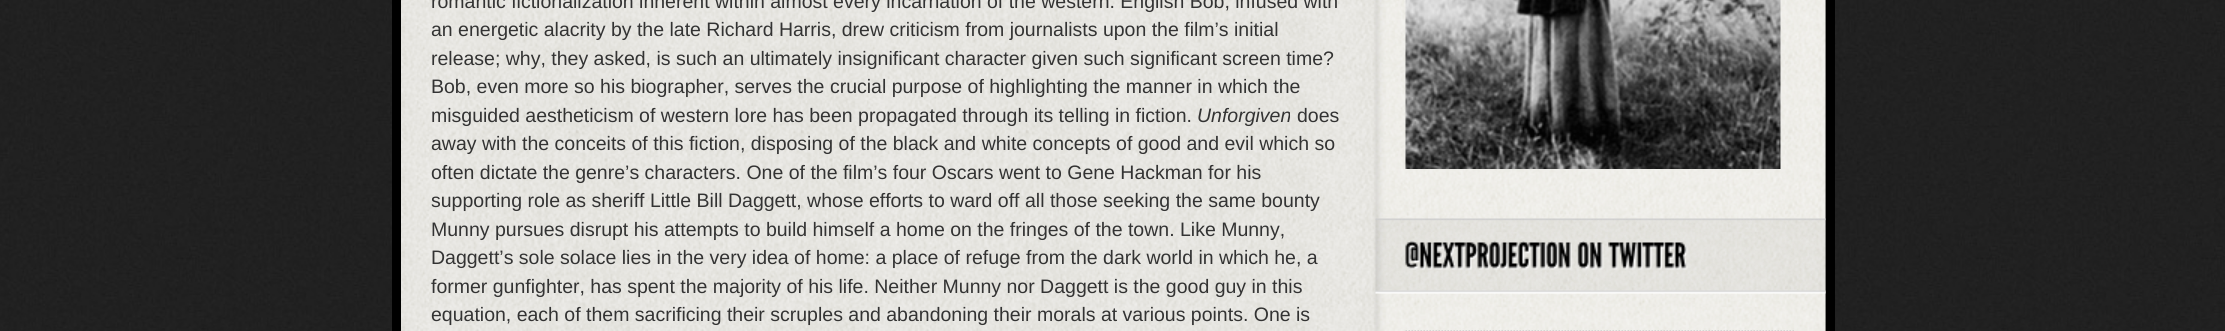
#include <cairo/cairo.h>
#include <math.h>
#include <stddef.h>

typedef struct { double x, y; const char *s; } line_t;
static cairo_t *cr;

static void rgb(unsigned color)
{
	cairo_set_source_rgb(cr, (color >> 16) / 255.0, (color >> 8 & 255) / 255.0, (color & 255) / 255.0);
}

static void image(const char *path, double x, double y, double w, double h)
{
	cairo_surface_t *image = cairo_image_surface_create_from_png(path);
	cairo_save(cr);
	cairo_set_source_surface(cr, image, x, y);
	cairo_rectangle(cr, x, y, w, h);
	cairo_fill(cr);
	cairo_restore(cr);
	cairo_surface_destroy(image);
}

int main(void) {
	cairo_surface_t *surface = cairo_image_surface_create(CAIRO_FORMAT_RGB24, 2225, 331);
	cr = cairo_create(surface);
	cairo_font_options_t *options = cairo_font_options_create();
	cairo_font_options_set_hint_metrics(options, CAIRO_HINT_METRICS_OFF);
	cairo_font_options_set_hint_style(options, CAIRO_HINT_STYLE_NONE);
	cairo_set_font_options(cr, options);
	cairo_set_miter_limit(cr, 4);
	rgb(0xffffff);
	cairo_paint(cr);
	image("img/1.png", 0, 0, 2225, 331);
	image("img/2.png", 401, 0, 1425, 331);
	rgb(0x000000);
	cairo_rectangle(cr, 1826, 0, 9, 331);
	cairo_fill(cr);
	cairo_rectangle(cr, 392, 0, 9, 331);
	cairo_fill(cr);
	image("img/3.png", 1405, 0, 376, 169);
	image("img/4.png", 1375, 218, 451, 76);
	image("img/5.png", 1405, 240, 167, 30);
	image("img/6.png", 1577, 241, 27, 29);
	image("img/7.png", 1608, 242, 80, 28);
	cairo_new_path(cr);
	cairo_move_to(cr, 1405.5, 331);
	cairo_line_to(cr, 1795.5, 331);
	rgb(0xcccccc);
	cairo_set_line_width(cr, 1.5);
	cairo_set_dash(cr, (double[]){1.5, 1.5}, 2, 0);
	cairo_stroke(cr);
	cairo_select_font_face(cr, "Liberation Sans", CAIRO_FONT_SLANT_NORMAL, CAIRO_FONT_WEIGHT_NORMAL);
	cairo_set_font_size(cr, 19.5);
	rgb(0x333333);
	{
		static const line_t items[] = {
			{431, 8, "romantic fictionalization inherent within almost every incarnation of the western. English Bob, infused with"},
			{431, 36, "an energetic alacrity by the late Richard Harris, drew criticism from journalists upon the film’s initial"},
			{431, 65, "release; why, they asked, is such an ultimately insignificant character given such significant screen time?"},
			{431, 93, "Bob, even more so his biographer, serves the crucial purpose of highlighting the manner in which the"},
			{431, 122, "misguided aestheticism of western lore has been propagated through its telling in fiction."},
		};
		for (size_t i = 0; i < sizeof items / sizeof *items; i++) {
			cairo_move_to(cr, items[i].x, items[i].y);
			cairo_show_text(cr, items[i].s);
		}
	}
	cairo_select_font_face(cr, "Liberation Sans", CAIRO_FONT_SLANT_ITALIC, CAIRO_FONT_WEIGHT_NORMAL);
	cairo_move_to(cr, 1197, 122);
	cairo_show_text(cr, "Unforgiven");
	cairo_select_font_face(cr, "Liberation Sans", CAIRO_FONT_SLANT_NORMAL, CAIRO_FONT_WEIGHT_NORMAL);
	{
		static const line_t items[] = {
			{1297, 122, "does"},
			{431, 150, "away with the conceits of this fiction, disposing of the black and white concepts of good and evil which so"},
			{431, 179, "often dictate the genre’s characters. One of the film’s four Oscars went to Gene Hackman for his"},
			{431, 207, "supporting role as sheriff Little Bill Daggett, whose efforts to ward off all those seeking the same bounty"},
			{431, 236, "Munny pursues disrupt his attempts to build himself a home on the fringes of the town. Like Munny,"},
			{431, 264, "Daggett’s sole solace lies in the very idea of home: a place of refuge from the dark world in which he, a"},
			{431, 293, "former gunfighter, has spent the majority of his life. Neither Munny nor Daggett is the good guy in this"},
			{431, 321, "equation, each of them sacrificing their scruples and abandoning their morals at various points. One is"},
		};
		for (size_t i = 0; i < sizeof items / sizeof *items; i++) {
			cairo_move_to(cr, items[i].x, items[i].y);
			cairo_show_text(cr, items[i].s);
		}
	}
	cairo_surface_write_to_png(surface, "page.png");
	cairo_font_options_destroy(options);
	cairo_destroy(cr);
	cairo_surface_destroy(surface);
	return 0;
}
